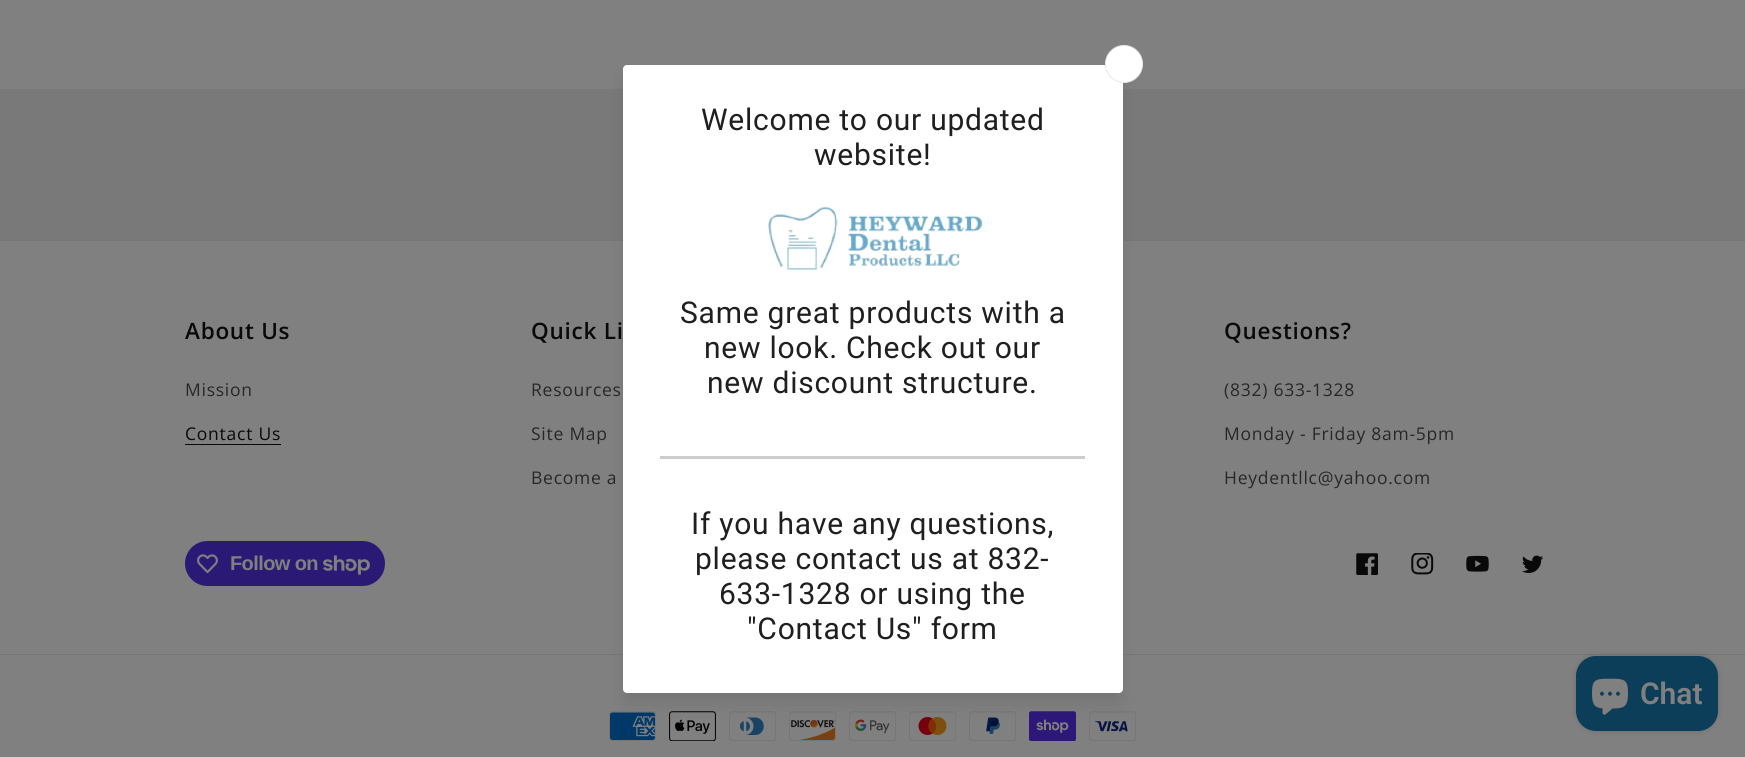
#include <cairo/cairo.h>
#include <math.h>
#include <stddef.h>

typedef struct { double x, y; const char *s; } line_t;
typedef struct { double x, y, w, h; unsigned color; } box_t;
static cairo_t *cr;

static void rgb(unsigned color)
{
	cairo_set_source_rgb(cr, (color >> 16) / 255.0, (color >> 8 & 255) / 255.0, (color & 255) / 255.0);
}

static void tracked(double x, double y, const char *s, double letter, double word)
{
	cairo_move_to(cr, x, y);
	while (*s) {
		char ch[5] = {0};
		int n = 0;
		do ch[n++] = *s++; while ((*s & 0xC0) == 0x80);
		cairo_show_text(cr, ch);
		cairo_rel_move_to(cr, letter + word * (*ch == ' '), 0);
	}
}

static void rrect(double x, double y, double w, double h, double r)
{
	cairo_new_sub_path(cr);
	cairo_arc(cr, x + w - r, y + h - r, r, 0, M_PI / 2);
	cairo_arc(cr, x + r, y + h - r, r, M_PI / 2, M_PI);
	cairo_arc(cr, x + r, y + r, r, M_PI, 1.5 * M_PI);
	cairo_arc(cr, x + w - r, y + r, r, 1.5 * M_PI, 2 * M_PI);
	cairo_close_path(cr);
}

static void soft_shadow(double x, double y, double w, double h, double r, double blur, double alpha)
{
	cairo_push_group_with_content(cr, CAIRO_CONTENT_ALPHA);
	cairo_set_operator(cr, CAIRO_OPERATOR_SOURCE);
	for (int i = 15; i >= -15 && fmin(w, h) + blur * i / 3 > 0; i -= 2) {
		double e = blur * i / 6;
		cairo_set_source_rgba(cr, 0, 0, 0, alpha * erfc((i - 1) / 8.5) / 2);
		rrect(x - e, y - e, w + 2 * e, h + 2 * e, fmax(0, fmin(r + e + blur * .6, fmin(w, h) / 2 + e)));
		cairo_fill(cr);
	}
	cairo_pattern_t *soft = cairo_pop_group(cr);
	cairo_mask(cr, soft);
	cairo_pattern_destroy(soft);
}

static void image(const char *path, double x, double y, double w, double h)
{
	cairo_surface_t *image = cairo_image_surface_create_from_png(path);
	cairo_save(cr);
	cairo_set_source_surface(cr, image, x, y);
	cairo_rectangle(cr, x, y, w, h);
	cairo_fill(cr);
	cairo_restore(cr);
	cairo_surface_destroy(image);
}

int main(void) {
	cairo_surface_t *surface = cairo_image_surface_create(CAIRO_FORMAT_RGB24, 1745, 757);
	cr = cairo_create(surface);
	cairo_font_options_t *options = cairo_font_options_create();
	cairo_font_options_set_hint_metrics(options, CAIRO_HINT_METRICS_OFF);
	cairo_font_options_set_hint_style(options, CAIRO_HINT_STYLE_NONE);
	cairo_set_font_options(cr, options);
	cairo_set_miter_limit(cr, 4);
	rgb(0x808080);
	cairo_paint(cr);
	{
		static const box_t items[] = {
			{0, 89, 1745, 151, 0x797979},
			{0, 240, 1745, 1, 0x767676},
			{0, 654, 1745, 1, 0x767676},
		};
		for (size_t i = 0; i < sizeof items / sizeof *items; i++) {
			rgb(items[i].color);
			cairo_rectangle(cr, items[i].x, items[i].y, items[i].w, items[i].h);
			cairo_fill(cr);
		}
	}
	image("img/8.png", 609, 711, 47, 30);
	image("img/9.png", 669, 711, 47, 30);
	image("img/10.png", 729, 711, 47, 30);
	image("img/11.png", 789, 711, 47, 30);
	image("img/12.png", 849, 711, 47, 30);
	image("img/13.png", 909, 711, 47, 30);
	image("img/14.png", 969, 711, 47, 30);
	image("img/15.png", 1029, 711, 47, 30);
	image("img/16.png", 1089, 711, 47, 30);
	rgb(0x000000);
	soft_shadow(626, 81, 493, 620, 0, 9.5, 0.1);
	rgb(0xffffff);
	rrect(623, 65, 500, 628, 4);
	cairo_fill(cr);
	cairo_arc(cr, 1124, 64, 18.5, 0, 2 * M_PI);
	cairo_fill_preserve(cr);
	rgb(0xe2e8f0);
	cairo_set_line_width(cr, 1);
	cairo_stroke(cr);
	image("img/1.png", 768, 206, 215, 65);
	rgb(0xcdcdcd);
	cairo_rectangle(cr, 660, 456, 425, 3);
	cairo_fill(cr);
	rgb(0x090909);
	cairo_rectangle(cr, 185, 444, 96, 1);
	cairo_fill(cr);
	rgb(0x2a1a76);
	rrect(185, 541, 200, 45, 22.5);
	cairo_fill(cr);
	image("img/2.png", 197, 554, 21, 20);
	image("img/3.png", 323, 555, 47, 20);
	image("img/4.png", 1356, 553, 22, 22);
	image("img/5.png", 1411, 553, 23, 22);
	image("img/6.png", 1466, 555, 23, 17);
	image("img/7.png", 1522, 555, 22, 18);
	rgb(0x000000);
	soft_shadow(1576, 656, 142, 75, 20, 3, 0.15);
	rgb(0x0c3e5a);
	rrect(1576, 656, 142, 75, 20);
	cairo_fill(cr);
	image("img/17.png", 1592, 678, 36, 37);
	cairo_select_font_face(cr, "Roboto", CAIRO_FONT_SLANT_NORMAL, CAIRO_FONT_WEIGHT_NORMAL);
	cairo_set_font_size(cr, 30);
	rgb(0x1f1f1f);
	{
		static const line_t items[] = {
			{701, 130, "Welcome to our updated"},
			{814, 165, "website!"},
			{680, 323, "Same great products with a"},
			{704, 358, "new look. Check out our"},
			{707, 393, "new discount structure."},
			{691, 534, "If you have any questions,"},
			{695, 569, "please contact us at 832-"},
			{719, 604, "633-1328 or using the"},
			{747, 639, "\"Contact Us\" form"},
		};
		for (size_t i = 0; i < sizeof items / sizeof *items; i++) {
			tracked(items[i].x, items[i].y, items[i].s, 0.75, 0);
		}
	}
	cairo_select_font_face(cr, "Open Sans SemiBold", CAIRO_FONT_SLANT_NORMAL, CAIRO_FONT_WEIGHT_NORMAL);
	cairo_set_font_size(cr, 22.5);
	rgb(0x090909);
	tracked(185, 339, "About Us", 0.75, 0);
	cairo_select_font_face(cr, "Open Sans", CAIRO_FONT_SLANT_NORMAL, CAIRO_FONT_WEIGHT_NORMAL);
	cairo_set_font_size(cr, 17.5);
	rgb(0x272727);
	tracked(185, 396, "Mission", 0.75, 0);
	rgb(0x090909);
	tracked(185, 440, "Contact Us", 0.75, 0);
	cairo_select_font_face(cr, "Open Sans SemiBold", CAIRO_FONT_SLANT_NORMAL, CAIRO_FONT_WEIGHT_NORMAL);
	cairo_set_font_size(cr, 22.5);
	tracked(531, 339, "Quick Li", 0.75, 0);
	cairo_select_font_face(cr, "Open Sans", CAIRO_FONT_SLANT_NORMAL, CAIRO_FONT_WEIGHT_NORMAL);
	cairo_set_font_size(cr, 17.5);
	rgb(0x272727);
	{
		static const line_t items[] = {
			{531, 396, "Resources"},
			{531, 440, "Site Map"},
			{531, 484, "Become a"},
		};
		for (size_t i = 0; i < sizeof items / sizeof *items; i++) {
			tracked(items[i].x, items[i].y, items[i].s, 0.75, 0);
		}
	}
	cairo_select_font_face(cr, "Open Sans SemiBold", CAIRO_FONT_SLANT_NORMAL, CAIRO_FONT_WEIGHT_NORMAL);
	cairo_set_font_size(cr, 22.5);
	rgb(0x090909);
	tracked(1224, 339, "Questions?", 0.75, 0);
	cairo_select_font_face(cr, "Open Sans", CAIRO_FONT_SLANT_NORMAL, CAIRO_FONT_WEIGHT_NORMAL);
	cairo_set_font_size(cr, 17.5);
	rgb(0x272727);
	{
		static const line_t items[] = {
			{1224, 396, "(832) 633-1328"},
			{1224, 440, "Monday - Friday 8am-5pm"},
			{1224, 484, "Heydentllc@yahoo.com"},
		};
		for (size_t i = 0; i < sizeof items / sizeof *items; i++) {
			tracked(items[i].x, items[i].y, items[i].s, 0.75, 0);
		}
	}
	cairo_select_font_face(cr, "Liberation Sans", CAIRO_FONT_SLANT_NORMAL, CAIRO_FONT_WEIGHT_BOLD);
	cairo_set_font_size(cr, 20);
	rgb(0x808080);
	tracked(230, 570, "Follow on", -0.6, 0);
	cairo_select_font_face(cr, "Roboto SemiBold", CAIRO_FONT_SLANT_NORMAL, CAIRO_FONT_WEIGHT_NORMAL);
	cairo_set_font_size(cr, 30);
	cairo_move_to(cr, 1640, 704);
	cairo_show_text(cr, "Chat");
	cairo_surface_write_to_png(surface, "page.png");
	cairo_font_options_destroy(options);
	cairo_destroy(cr);
	cairo_surface_destroy(surface);
	return 0;
}
